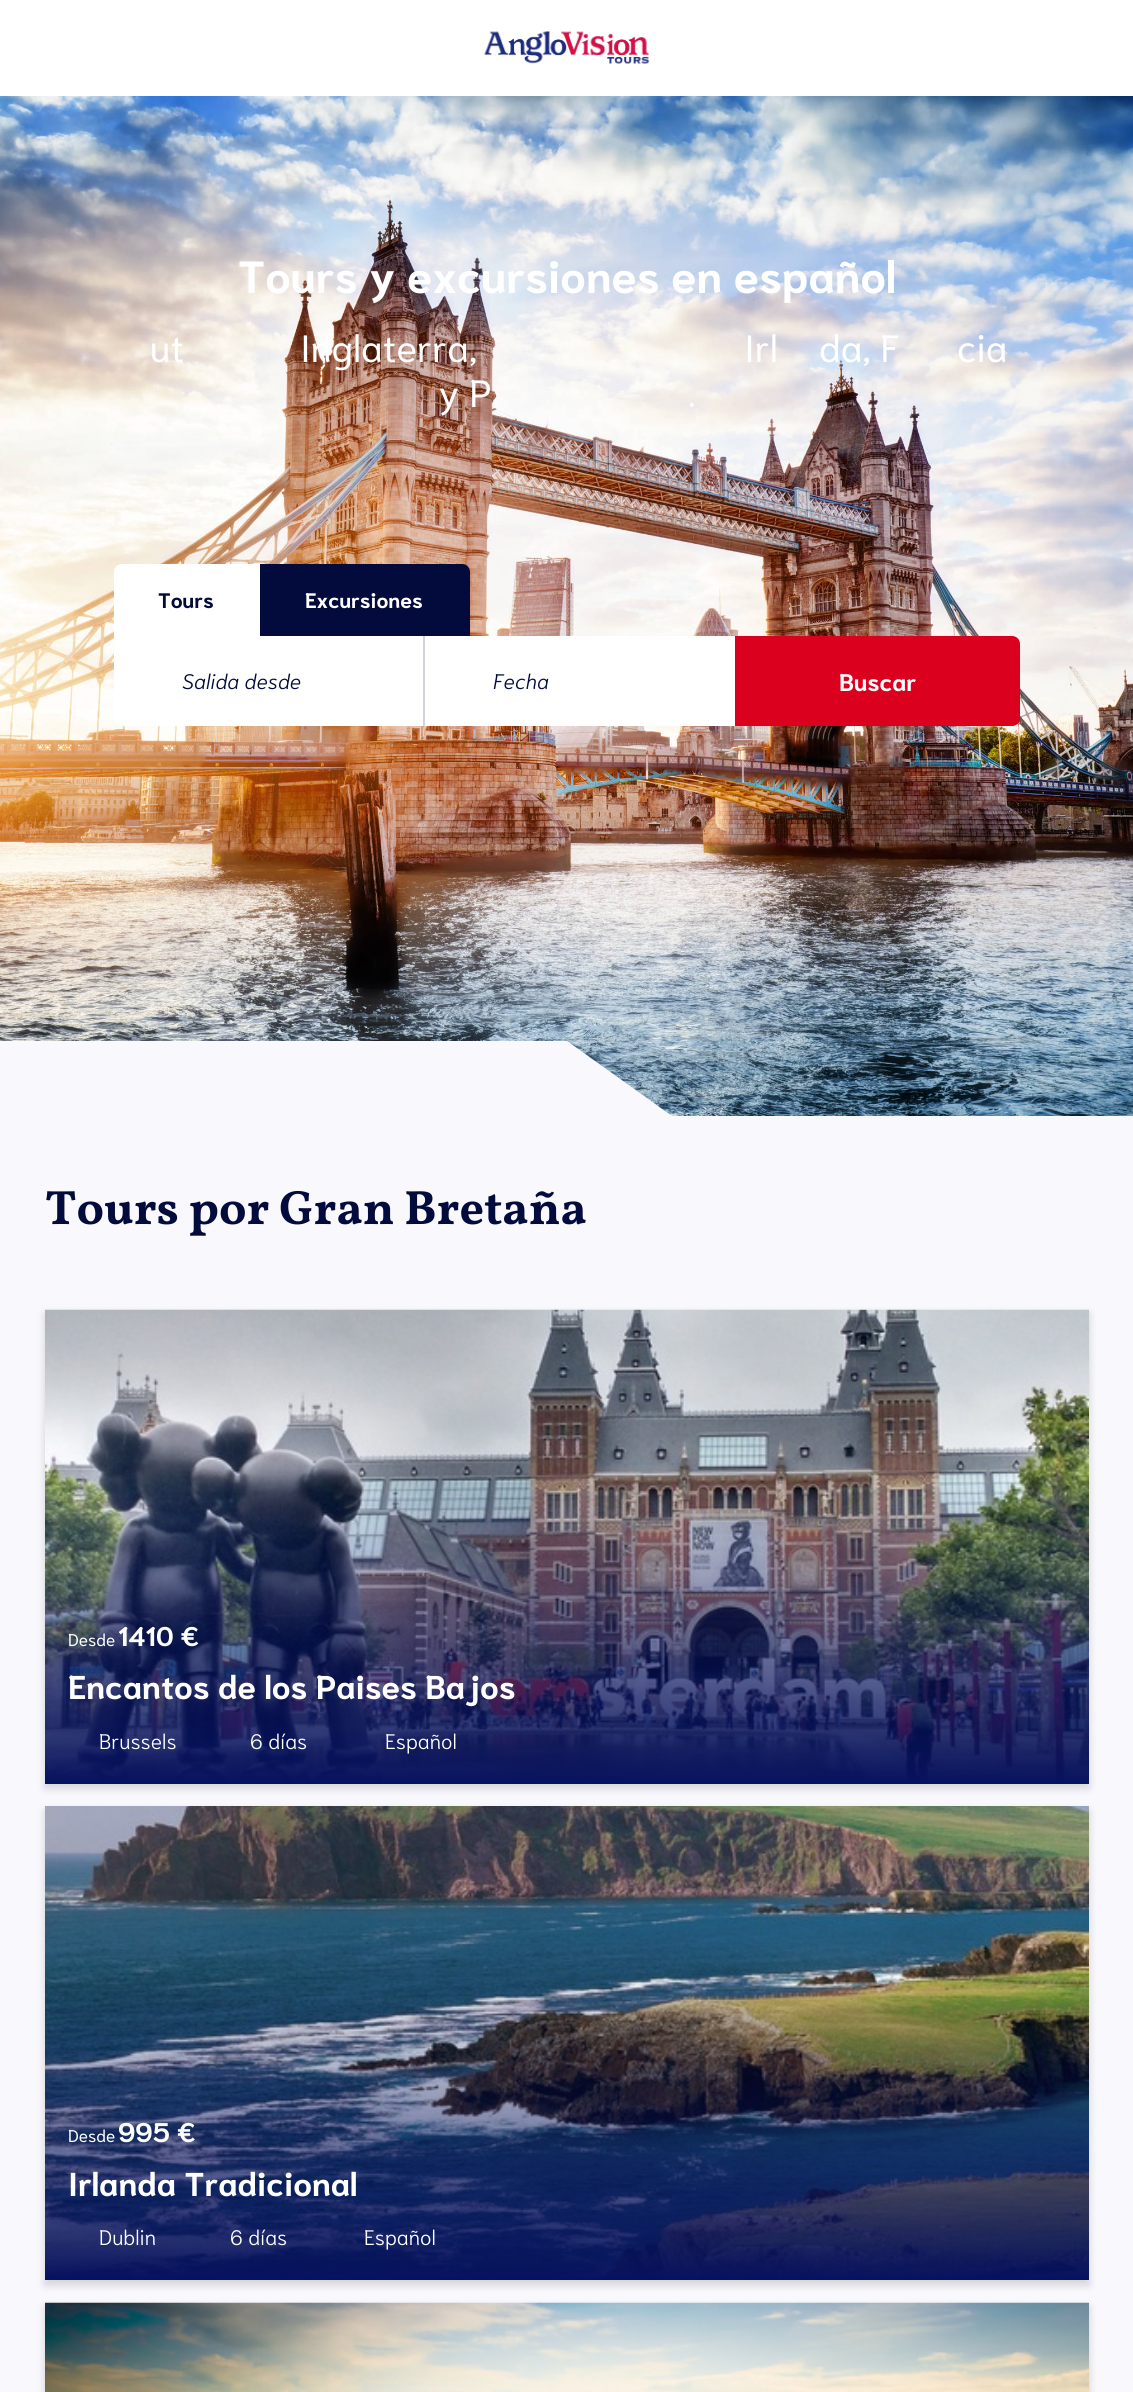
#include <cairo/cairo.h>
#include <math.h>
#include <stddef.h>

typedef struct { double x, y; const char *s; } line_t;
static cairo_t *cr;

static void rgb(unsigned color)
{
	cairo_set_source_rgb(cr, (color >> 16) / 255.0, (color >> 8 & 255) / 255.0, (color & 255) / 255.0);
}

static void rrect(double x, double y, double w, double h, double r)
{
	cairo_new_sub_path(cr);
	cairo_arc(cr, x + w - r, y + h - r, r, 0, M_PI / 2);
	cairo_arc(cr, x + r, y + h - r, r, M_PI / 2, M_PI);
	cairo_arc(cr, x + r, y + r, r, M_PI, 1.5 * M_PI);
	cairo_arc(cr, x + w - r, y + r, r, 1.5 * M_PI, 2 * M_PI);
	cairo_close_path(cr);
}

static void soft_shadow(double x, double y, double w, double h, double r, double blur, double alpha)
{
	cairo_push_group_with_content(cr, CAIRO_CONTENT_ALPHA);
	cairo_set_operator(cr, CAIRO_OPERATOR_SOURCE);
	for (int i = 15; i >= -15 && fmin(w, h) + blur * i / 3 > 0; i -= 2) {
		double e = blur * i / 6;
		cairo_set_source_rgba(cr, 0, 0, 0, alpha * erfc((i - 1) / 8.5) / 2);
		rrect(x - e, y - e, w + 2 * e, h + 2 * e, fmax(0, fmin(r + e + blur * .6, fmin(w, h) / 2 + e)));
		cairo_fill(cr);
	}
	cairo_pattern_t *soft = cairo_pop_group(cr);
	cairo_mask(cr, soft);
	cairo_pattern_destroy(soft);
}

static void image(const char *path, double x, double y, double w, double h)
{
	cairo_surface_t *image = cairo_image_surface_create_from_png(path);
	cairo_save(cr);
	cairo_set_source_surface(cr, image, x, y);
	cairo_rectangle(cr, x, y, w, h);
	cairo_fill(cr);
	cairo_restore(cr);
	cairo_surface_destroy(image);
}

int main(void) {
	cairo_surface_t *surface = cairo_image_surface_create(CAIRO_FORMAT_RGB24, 1133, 2392);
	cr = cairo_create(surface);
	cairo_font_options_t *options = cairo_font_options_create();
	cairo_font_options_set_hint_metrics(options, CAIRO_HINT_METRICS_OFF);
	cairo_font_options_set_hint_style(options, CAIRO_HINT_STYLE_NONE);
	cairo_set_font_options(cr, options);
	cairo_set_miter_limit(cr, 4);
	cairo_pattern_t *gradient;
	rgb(0xffffff);
	cairo_paint(cr);
	image("img/1.png", 484, 31, 166, 33);
	image("img/2.png", 0, 96, 1133, 1020);
	rgb(0xffffff);
	cairo_new_path(cr);
	cairo_move_to(cr, 122, 564);
	cairo_line_to(cr, 260, 564);
	cairo_line_to(cr, 260, 636);
	cairo_line_to(cr, 114, 636);
	cairo_line_to(cr, 114, 572);
	cairo_curve_to(cr, 114, 567.5, 117.5, 564, 122, 564);
	cairo_close_path(cr);
	cairo_fill(cr);
	rgb(0x030b3c);
	cairo_new_path(cr);
	cairo_move_to(cr, 260, 564);
	cairo_line_to(cr, 462, 564);
	cairo_curve_to(cr, 466.5, 564, 470, 567.5, 470, 572);
	cairo_line_to(cr, 470, 636);
	cairo_line_to(cr, 260, 636);
	cairo_close_path(cr);
	cairo_fill(cr);
	rgb(0xffffff);
	cairo_new_path(cr);
	cairo_move_to(cr, 114, 636);
	cairo_line_to(cr, 425, 636);
	cairo_line_to(cr, 425, 726);
	cairo_line_to(cr, 122, 726);
	cairo_curve_to(cr, 117.5, 726, 114, 722.5, 114, 718);
	cairo_close_path(cr);
	cairo_fill(cr);
	rgb(0xd0d2e0);
	cairo_rectangle(cr, 423, 636, 2, 90);
	cairo_fill(cr);
	rgb(0xffffff);
	cairo_rectangle(cr, 425, 636, 310, 90);
	cairo_fill(cr);
	rgb(0xdb001e);
	cairo_new_path(cr);
	cairo_move_to(cr, 735, 636);
	cairo_line_to(cr, 1012, 636);
	cairo_curve_to(cr, 1016.5, 636, 1020, 639.5, 1020, 644);
	cairo_line_to(cr, 1020, 718);
	cairo_curve_to(cr, 1020, 722.5, 1016.5, 726, 1012, 726);
	cairo_line_to(cr, 735, 726);
	cairo_close_path(cr);
	cairo_fill(cr);
	rgb(0xf9f9fd);
	cairo_rectangle(cr, 0, 1041, 567, 75);
	cairo_fill(cr);
	cairo_new_path(cr);
	cairo_move_to(cr, 567, 1116);
	cairo_line_to(cr, 567, 1041);
	cairo_line_to(cr, 672, 1116);
	cairo_close_path(cr);
	cairo_fill(cr);
	cairo_rectangle(cr, 0, 1116, 1133, 1276);
	cairo_fill(cr);
	rgb(0x000000);
	soft_shadow(45, 1314, 1044, 474, 0, 4.5, 0.16);
	image("img/3.png", 45, 1309, 1044, 473);
	gradient = cairo_pattern_create_linear(567, 1784, 567, 1310);
	cairo_pattern_add_color_stop_rgba(gradient, 0, 0.024, 0.071, 0.365, 1);
	cairo_pattern_add_color_stop_rgba(gradient, 0.65, 0.024, 0.071, 0.365, 0);
	cairo_set_source(cr, gradient);
	cairo_pattern_destroy(gradient);
	cairo_rectangle(cr, 45, 1483, 1044, 301);
	cairo_fill(cr);
	rgb(0x000000);
	soft_shadow(45, 1811, 1044, 474, 0, 4.5, 0.16);
	image("img/4.png", 45, 1806, 1044, 474);
	soft_shadow(45, 2307, 1044, 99, 0, 4.5, 0.16);
	image("img/5.png", 45, 2302, 1044, 90);
	cairo_select_font_face(cr, "Niramit", CAIRO_FONT_SLANT_NORMAL, CAIRO_FONT_WEIGHT_BOLD);
	cairo_set_font_size(cr, 45);
	rgb(0xffffff);
	cairo_move_to(cr, 238, 293);
	cairo_show_text(cr, "Tours y excursiones en español");
	cairo_select_font_face(cr, "Niramit", CAIRO_FONT_SLANT_NORMAL, CAIRO_FONT_WEIGHT_NORMAL);
	cairo_set_font_size(cr, 38);
	{
		static const line_t items[] = {
			{150, 362, "ut"},
			{300, 362, "Inglaterra,"},
			{744, 362, "Irl"},
			{819, 362, "da, F"},
			{957, 362, "cia"},
			{438, 407, "y P"},
			{688, 407, "."},
		};
		for (size_t i = 0; i < sizeof items / sizeof *items; i++) {
			cairo_move_to(cr, items[i].x, items[i].y);
			cairo_show_text(cr, items[i].s);
		}
	}
	cairo_select_font_face(cr, "Niramit", CAIRO_FONT_SLANT_NORMAL, CAIRO_FONT_WEIGHT_BOLD);
	cairo_set_font_size(cr, 21);
	rgb(0x030b3c);
	cairo_move_to(cr, 158, 608);
	cairo_show_text(cr, "Tours");
	rgb(0xffffff);
	cairo_move_to(cr, 305, 608);
	cairo_show_text(cr, "Excursiones");
	cairo_select_font_face(cr, "Niramit Light", CAIRO_FONT_SLANT_ITALIC, CAIRO_FONT_WEIGHT_NORMAL);
	rgb(0x030b3c);
	cairo_move_to(cr, 182, 689);
	cairo_show_text(cr, "Salida desde");
	cairo_move_to(cr, 493, 689);
	cairo_show_text(cr, "Fecha");
	cairo_select_font_face(cr, "Niramit", CAIRO_FONT_SLANT_NORMAL, CAIRO_FONT_WEIGHT_BOLD);
	cairo_set_font_size(cr, 24);
	rgb(0xffffff);
	cairo_move_to(cr, 839, 691);
	cairo_show_text(cr, "Buscar");
	cairo_select_font_face(cr, "Vollkorn", CAIRO_FONT_SLANT_NORMAL, CAIRO_FONT_WEIGHT_BOLD);
	cairo_set_font_size(cr, 48.25);
	rgb(0x030b3c);
	cairo_move_to(cr, 45, 1224);
	cairo_show_text(cr, "Tours por Gran Bretaña");
	cairo_select_font_face(cr, "Niramit", CAIRO_FONT_SLANT_NORMAL, CAIRO_FONT_WEIGHT_NORMAL);
	cairo_set_font_size(cr, 17);
	rgb(0xffffff);
	cairo_move_to(cr, 68, 1646);
	cairo_show_text(cr, "Desde");
	cairo_select_font_face(cr, "Niramit", CAIRO_FONT_SLANT_NORMAL, CAIRO_FONT_WEIGHT_BOLD);
	cairo_set_font_size(cr, 27);
	cairo_move_to(cr, 118, 1646);
	cairo_show_text(cr, "1410 €");
	cairo_set_font_size(cr, 33);
	cairo_move_to(cr, 68, 1699);
	cairo_show_text(cr, "Encantos de los Paises Bajos");
	cairo_select_font_face(cr, "Niramit Light", CAIRO_FONT_SLANT_NORMAL, CAIRO_FONT_WEIGHT_NORMAL);
	cairo_set_font_size(cr, 21);
	{
		static const line_t items[] = {
			{99, 1749, "Brussels"},
			{250, 1749, "6 días"},
			{385, 1749, "Español"},
		};
		for (size_t i = 0; i < sizeof items / sizeof *items; i++) {
			cairo_move_to(cr, items[i].x, items[i].y);
			cairo_show_text(cr, items[i].s);
		}
	}
	cairo_select_font_face(cr, "Niramit", CAIRO_FONT_SLANT_NORMAL, CAIRO_FONT_WEIGHT_NORMAL);
	cairo_set_font_size(cr, 17);
	cairo_move_to(cr, 68, 2142);
	cairo_show_text(cr, "Desde");
	cairo_select_font_face(cr, "Niramit", CAIRO_FONT_SLANT_NORMAL, CAIRO_FONT_WEIGHT_BOLD);
	cairo_set_font_size(cr, 27);
	cairo_move_to(cr, 118, 2142);
	cairo_show_text(cr, "995 €");
	cairo_set_font_size(cr, 33);
	cairo_move_to(cr, 68, 2196);
	cairo_show_text(cr, "Irlanda Tradicional");
	cairo_select_font_face(cr, "Niramit Light", CAIRO_FONT_SLANT_NORMAL, CAIRO_FONT_WEIGHT_NORMAL);
	cairo_set_font_size(cr, 21);
	{
		static const line_t items[] = {
			{99, 2245, "Dublin"},
			{230, 2245, "6 días"},
			{364, 2245, "Español"},
		};
		for (size_t i = 0; i < sizeof items / sizeof *items; i++) {
			cairo_move_to(cr, items[i].x, items[i].y);
			cairo_show_text(cr, items[i].s);
		}
	}
	cairo_surface_write_to_png(surface, "page.png");
	cairo_font_options_destroy(options);
	cairo_destroy(cr);
	cairo_surface_destroy(surface);
	return 0;
}
